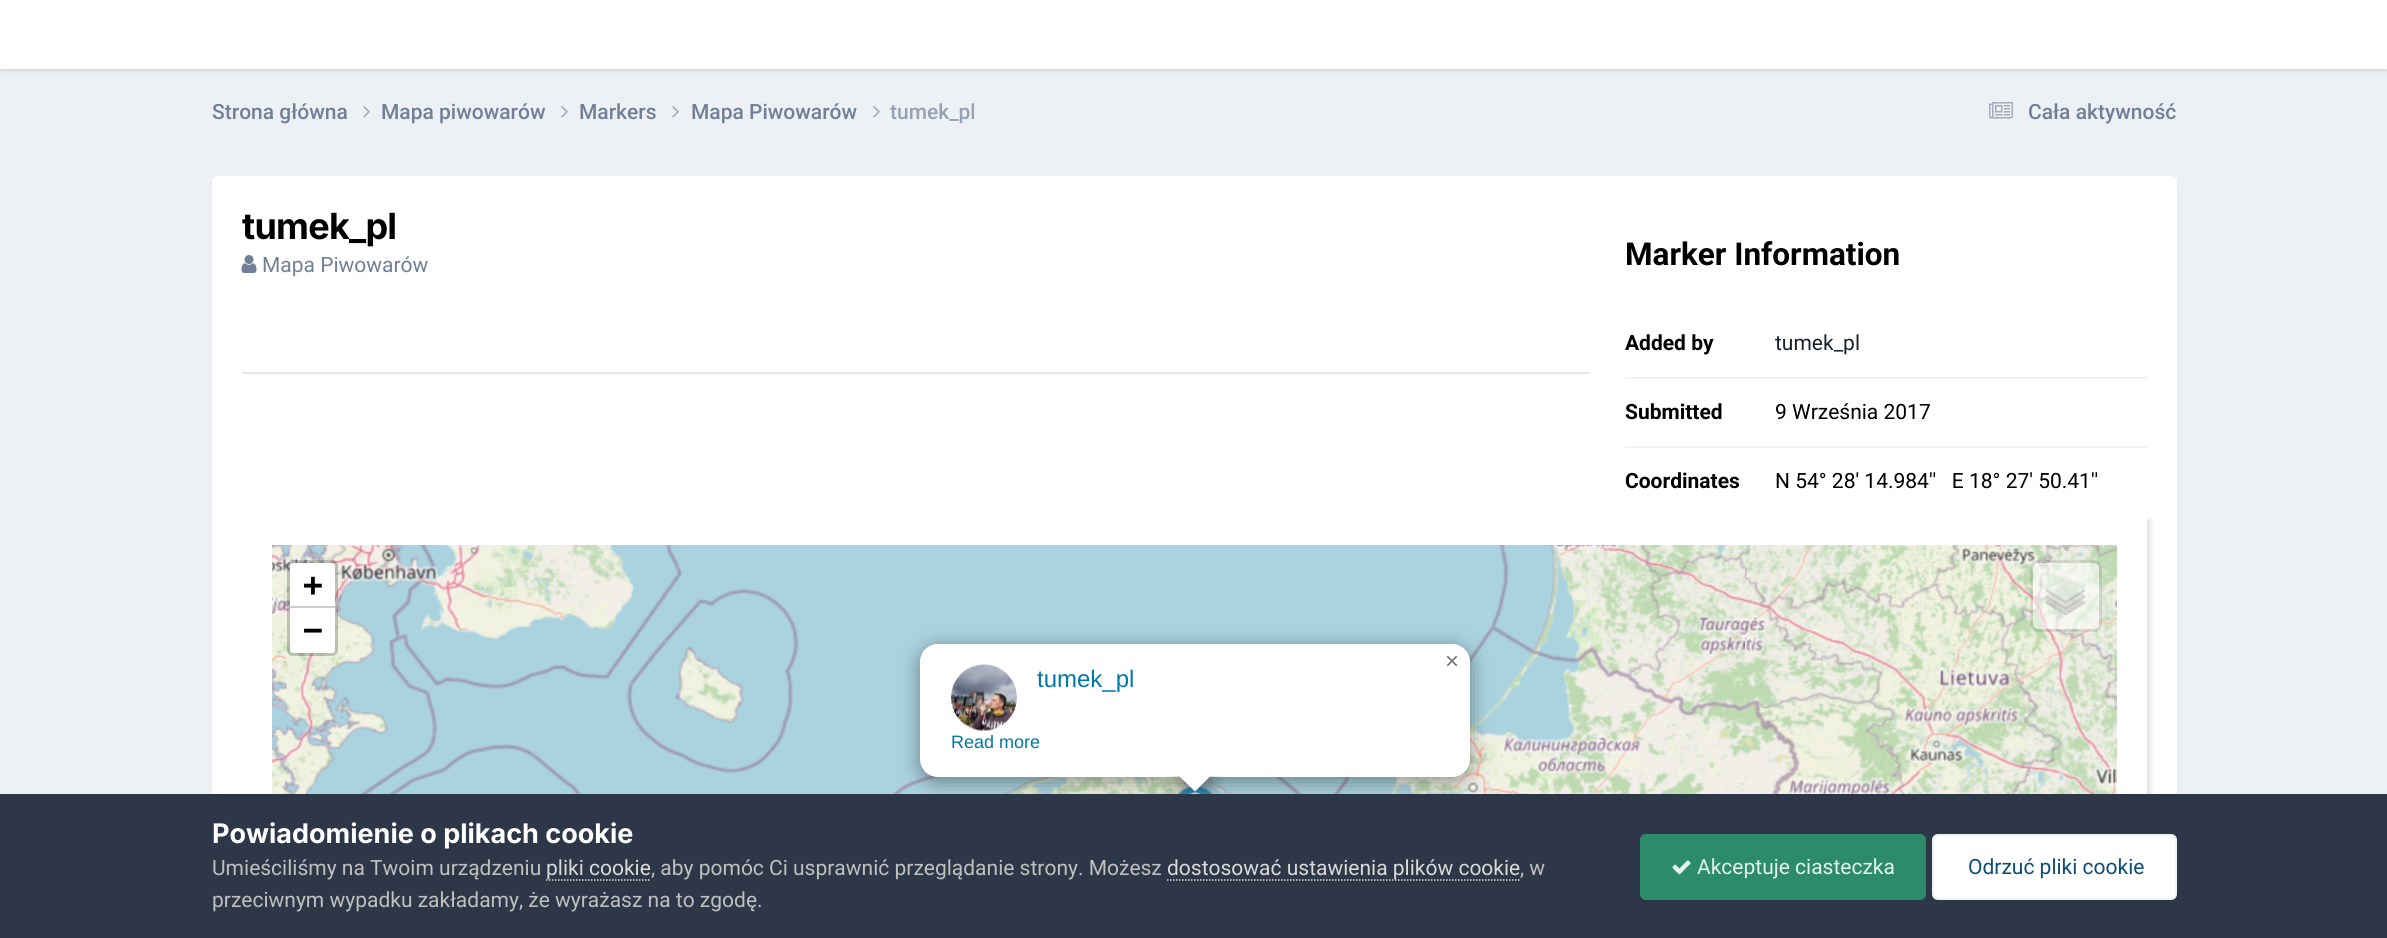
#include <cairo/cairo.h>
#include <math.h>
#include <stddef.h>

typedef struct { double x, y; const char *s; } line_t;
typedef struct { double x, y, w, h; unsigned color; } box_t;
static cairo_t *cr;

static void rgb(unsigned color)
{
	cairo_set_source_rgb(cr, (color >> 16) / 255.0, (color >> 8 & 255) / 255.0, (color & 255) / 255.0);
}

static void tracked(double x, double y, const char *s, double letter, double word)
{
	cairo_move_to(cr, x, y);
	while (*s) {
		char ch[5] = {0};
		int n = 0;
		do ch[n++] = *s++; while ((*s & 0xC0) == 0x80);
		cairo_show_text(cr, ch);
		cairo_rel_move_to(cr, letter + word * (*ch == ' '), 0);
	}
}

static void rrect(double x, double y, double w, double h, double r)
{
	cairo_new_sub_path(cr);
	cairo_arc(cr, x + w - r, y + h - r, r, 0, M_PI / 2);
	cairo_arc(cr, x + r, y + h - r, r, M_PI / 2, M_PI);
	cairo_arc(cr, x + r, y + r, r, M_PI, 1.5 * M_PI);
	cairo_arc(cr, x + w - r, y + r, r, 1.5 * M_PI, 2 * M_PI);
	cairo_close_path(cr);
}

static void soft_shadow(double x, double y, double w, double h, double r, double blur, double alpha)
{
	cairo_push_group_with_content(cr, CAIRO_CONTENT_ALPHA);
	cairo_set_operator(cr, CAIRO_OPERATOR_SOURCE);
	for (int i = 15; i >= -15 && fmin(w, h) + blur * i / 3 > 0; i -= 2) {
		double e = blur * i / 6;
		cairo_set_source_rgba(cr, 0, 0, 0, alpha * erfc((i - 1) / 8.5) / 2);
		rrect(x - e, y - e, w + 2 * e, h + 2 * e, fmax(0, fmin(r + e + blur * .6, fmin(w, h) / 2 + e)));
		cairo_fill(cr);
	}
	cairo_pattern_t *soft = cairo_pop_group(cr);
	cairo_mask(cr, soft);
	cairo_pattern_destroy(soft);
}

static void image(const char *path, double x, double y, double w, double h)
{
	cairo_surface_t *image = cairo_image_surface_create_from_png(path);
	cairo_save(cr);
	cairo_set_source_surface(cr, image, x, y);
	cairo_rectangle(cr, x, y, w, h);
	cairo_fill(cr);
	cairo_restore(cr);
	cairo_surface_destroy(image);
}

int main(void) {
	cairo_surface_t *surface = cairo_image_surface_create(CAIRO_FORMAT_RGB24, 2387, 938);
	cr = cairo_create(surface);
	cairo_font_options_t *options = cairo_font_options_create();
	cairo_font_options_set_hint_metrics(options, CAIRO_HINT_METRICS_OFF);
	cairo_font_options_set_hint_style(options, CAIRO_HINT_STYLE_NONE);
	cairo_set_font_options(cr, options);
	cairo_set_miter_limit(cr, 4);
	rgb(0xedf0f4);
	cairo_paint(cr);
	rgb(0x000000);
	soft_shadow(0, -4, 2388, 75, 0, 1.5, 0.1);
	rgb(0xffffff);
	cairo_rectangle(cr, 0, 0, 2387, 69);
	cairo_fill(cr);
	image("img/1.png", 363, 106, 7, 12);
	image("img/1.png", 561, 106, 7, 12);
	image("img/1.png", 672, 106, 7, 12);
	image("img/1.png", 873, 106, 7, 12);
	image("img/2.png", 1989, 102, 24, 17);
	rgb(0x2d3748);
	soft_shadow(213, 180, 1962, 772, 5, 3, 0.1);
	rgb(0xffffff);
	rrect(212, 176, 1965, 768, 6);
	cairo_fill(cr);
	image("img/3.png", 241, 255, 16, 18);
	{
		static const box_t items[] = {
			{242, 372, 1347, 2, 0xe6e6e6},
			{1625, 377, 522, 2, 0xf1f2f5},
			{1625, 446, 522, 2, 0xf1f2f5},
		};
		for (size_t i = 0; i < sizeof items / sizeof *items; i++) {
			rgb(items[i].color);
			cairo_rectangle(cr, items[i].x, items[i].y, items[i].w, items[i].h);
			cairo_fill(cr);
		}
	}
	cairo_save(cr);
	cairo_set_fill_rule(cr, CAIRO_FILL_RULE_EVEN_ODD);
	cairo_new_path(cr);
	cairo_move_to(cr, 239, 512);
	cairo_line_to(cr, 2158, 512);
	cairo_line_to(cr, 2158, 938);
	cairo_line_to(cr, 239, 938);
	cairo_close_path(cr);
	cairo_move_to(cr, 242, 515);
	cairo_line_to(cr, 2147, 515);
	cairo_line_to(cr, 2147, 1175);
	cairo_line_to(cr, 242, 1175);
	cairo_close_path(cr);
	cairo_clip(cr);
	rgb(0xe5e5e5);
	soft_shadow(246, 519, 1905, 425, 0, 2, 1);
	cairo_restore(cr);
	image("img/5.png", 272, 545, 321, 249);
	rrect(288.5, 561.5, 48, 93, 4.5);
	cairo_set_source_rgba(cr, 0, 0, 0, 0.2);
	cairo_set_line_width(cr, 3);
	cairo_stroke(cr);
	rgb(0xffffff);
	cairo_new_path(cr);
	cairo_move_to(cr, 293, 563);
	cairo_line_to(cr, 332, 563);
	cairo_curve_to(cr, 333.5, 563, 335, 564.5, 335, 566);
	cairo_line_to(cr, 335, 608);
	cairo_line_to(cr, 290, 608);
	cairo_line_to(cr, 290, 566);
	cairo_curve_to(cr, 290, 564.5, 291.5, 563, 293, 563);
	cairo_close_path(cr);
	cairo_fill(cr);
	rgb(0xcccccc);
	cairo_rectangle(cr, 290, 606, 45, 2);
	cairo_fill(cr);
	rgb(0xffffff);
	cairo_new_path(cr);
	cairo_move_to(cr, 290, 608);
	cairo_line_to(cr, 335, 608);
	cairo_line_to(cr, 335, 650);
	cairo_curve_to(cr, 335, 651.5, 333.5, 653, 332, 653);
	cairo_line_to(cr, 293, 653);
	cairo_curve_to(cr, 291.5, 653, 290, 651.5, 290, 650);
	cairo_close_path(cr);
	cairo_fill(cr);
	image("img/9.png", 1745, 545, 372, 249);
	cairo_set_source_rgba(cr, 1, 1, 1, 0.5);
	rrect(2033, 563, 66, 66, 5);
	cairo_fill(cr);
	rrect(2031.5, 561.5, 69, 69, 6.5);
	cairo_set_source_rgba(cr, 0, 0, 0, 0.1);
	cairo_stroke(cr);
	image("img/4.png", 2046, 577, 39, 38);
	image("img/6.png", 593, 545, 384, 249);
	image("img/7.png", 977, 545, 384, 249);
	image("img/8.png", 1361, 545, 384, 249);
	image("img/11.png", 1177, 785, 36, 9);
	image("img/12.png", 1190, 792, 10, 2);
	rgb(0x000000);
	soft_shadow(920, 648, 550, 134, 18, 10.5, 0.4);
	rgb(0xffffff);
	rrect(920, 644, 550, 133, 18);
	cairo_fill(cr);
	image("img/10.png", 951, 664, 66, 67);
	cairo_save(cr);
	cairo_rectangle(cr, 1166, 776, 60, 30);
	cairo_clip(cr);
	rgb(0x000000);
	soft_shadow(1182, 765, 26, 26, 0, 10.5, 0.4);
	cairo_restore(cr);
	cairo_save(cr);
	cairo_rectangle(cr, 1166, 776, 60, 30);
	cairo_clip(cr);
	cairo_new_path(cr);
	cairo_move_to(cr, 1195, 755.5);
	cairo_line_to(cr, 1213, 773.5);
	cairo_line_to(cr, 1195, 791.5);
	cairo_line_to(cr, 1176.5, 773.5);
	cairo_close_path(cr);
	cairo_fill(cr);
	cairo_restore(cr);
	rgb(0x2d3748);
	cairo_rectangle(cr, 0, 794, 2387, 144);
	cairo_fill(cr);
	cairo_new_path(cr);
	cairo_move_to(cr, 546, 880);
	cairo_line_to(cr, 651, 880);
	rgb(0xdadada);
	cairo_set_line_width(cr, 1.5);
	cairo_set_dash(cr, (double[]){1.5, 1.5}, 2, 0);
	cairo_stroke(cr);
	cairo_new_path(cr);
	cairo_move_to(cr, 1167, 880);
	cairo_line_to(cr, 1519.5, 880);
	cairo_stroke(cr);
	rgb(0x2c8c69);
	rrect(1640, 834, 286, 66, 6);
	cairo_fill(cr);
	image("img/13.png", 1672, 860, 19, 15);
	rgb(0xffffff);
	rrect(1932, 834, 245, 66, 6);
	cairo_fill(cr);
	rrect(1933, 835, 243, 64, 5);
	cairo_set_source_rgba(cr, 0.055, 0.298, 0.475, 0.07);
	cairo_set_line_width(cr, 2);
	cairo_set_dash(cr, NULL, 0, 0);
	cairo_stroke(cr);
	cairo_select_font_face(cr, "Roboto Medium", CAIRO_FONT_SLANT_NORMAL, CAIRO_FONT_WEIGHT_NORMAL);
	cairo_set_font_size(cr, 21);
	rgb(0x718096);
	{
		static const line_t items[] = {
			{212, 119, "Strona główna"},
			{381, 119, "Mapa piwowarów"},
			{579, 119, "Markers"},
			{691, 119, "Mapa Piwowarów"},
		};
		for (size_t i = 0; i < sizeof items / sizeof *items; i++) {
			cairo_move_to(cr, items[i].x, items[i].y);
			cairo_show_text(cr, items[i].s);
		}
	}
	rgb(0x96a2b2);
	cairo_move_to(cr, 890, 119);
	cairo_show_text(cr, "tumek_pl");
	rgb(0x718096);
	cairo_move_to(cr, 2028, 119);
	cairo_show_text(cr, "Cała aktywność");
	cairo_select_font_face(cr, "Inter", CAIRO_FONT_SLANT_NORMAL, CAIRO_FONT_WEIGHT_BOLD);
	cairo_set_font_size(cr, 36);
	rgb(0x000000);
	tracked(242, 239, "tumek_pl", -0.75, 0);
	cairo_select_font_face(cr, "Roboto", CAIRO_FONT_SLANT_NORMAL, CAIRO_FONT_WEIGHT_NORMAL);
	cairo_set_font_size(cr, 21);
	rgb(0x718096);
	cairo_move_to(cr, 262, 272);
	cairo_show_text(cr, "Mapa Piwowarów");
	cairo_select_font_face(cr, "Roboto", CAIRO_FONT_SLANT_NORMAL, CAIRO_FONT_WEIGHT_BOLD);
	cairo_set_font_size(cr, 31.5);
	rgb(0x000000);
	cairo_move_to(cr, 1625, 265);
	cairo_show_text(cr, "Marker Information");
	cairo_set_font_size(cr, 21);
	cairo_move_to(cr, 1625, 350);
	cairo_show_text(cr, "Added by");
	cairo_select_font_face(cr, "Roboto", CAIRO_FONT_SLANT_NORMAL, CAIRO_FONT_WEIGHT_NORMAL);
	rgb(0x1a202c);
	cairo_move_to(cr, 1775, 350);
	cairo_show_text(cr, "tumek_pl");
	cairo_select_font_face(cr, "Roboto", CAIRO_FONT_SLANT_NORMAL, CAIRO_FONT_WEIGHT_BOLD);
	rgb(0x000000);
	cairo_move_to(cr, 1625, 419);
	cairo_show_text(cr, "Submitted");
	cairo_select_font_face(cr, "Roboto", CAIRO_FONT_SLANT_NORMAL, CAIRO_FONT_WEIGHT_NORMAL);
	cairo_move_to(cr, 1775, 419);
	cairo_show_text(cr, "9 Września 2017");
	cairo_select_font_face(cr, "Roboto", CAIRO_FONT_SLANT_NORMAL, CAIRO_FONT_WEIGHT_BOLD);
	cairo_move_to(cr, 1625, 488);
	cairo_show_text(cr, "Coordinates");
	cairo_select_font_face(cr, "Roboto", CAIRO_FONT_SLANT_NORMAL, CAIRO_FONT_WEIGHT_NORMAL);
	cairo_move_to(cr, 1775, 488);
	cairo_show_text(cr, "N 54° 28' 14.984''   E 18° 27' 50.41''");
	cairo_select_font_face(cr, "DejaVu Sans Mono", CAIRO_FONT_SLANT_NORMAL, CAIRO_FONT_WEIGHT_BOLD);
	cairo_set_font_size(cr, 33);
	cairo_move_to(cr, 303, 596);
	cairo_show_text(cr, "+");
	cairo_move_to(cr, 303, 641);
	cairo_show_text(cr, "−");
	cairo_select_font_face(cr, "Liberation Sans", CAIRO_FONT_SLANT_NORMAL, CAIRO_FONT_WEIGHT_NORMAL);
	cairo_set_font_size(cr, 24);
	rgb(0x757575);
	cairo_move_to(cr, 1445, 669);
	cairo_show_text(cr, "×");
	rgb(0x0078a8);
	cairo_move_to(cr, 1037, 687);
	cairo_show_text(cr, "tumek_pl");
	cairo_set_font_size(cr, 18);
	cairo_move_to(cr, 951, 748);
	cairo_show_text(cr, "Read more");
	cairo_select_font_face(cr, "Inter", CAIRO_FONT_SLANT_NORMAL, CAIRO_FONT_WEIGHT_BOLD);
	cairo_set_font_size(cr, 27);
	rgb(0xffffff);
	cairo_move_to(cr, 212, 843);
	cairo_show_text(cr, "Powiadomienie o plikach cookie");
	cairo_select_font_face(cr, "Roboto", CAIRO_FONT_SLANT_NORMAL, CAIRO_FONT_WEIGHT_NORMAL);
	cairo_set_font_size(cr, 21);
	rgb(0xc0c0c0);
	cairo_move_to(cr, 212, 875);
	cairo_show_text(cr, "Umieściliśmy na Twoim urządzeniu");
	rgb(0xdadada);
	cairo_move_to(cr, 546, 875);
	cairo_show_text(cr, "pliki cookie");
	rgb(0xc0c0c0);
	cairo_move_to(cr, 651, 875);
	cairo_show_text(cr, ", aby pomóc Ci usprawnić przeglądanie strony. Możesz");
	rgb(0xdadada);
	cairo_move_to(cr, 1167, 875);
	cairo_show_text(cr, "dostosować ustawienia plików cookie");
	rgb(0xc0c0c0);
	cairo_move_to(cr, 1520, 875);
	cairo_show_text(cr, ", w");
	cairo_move_to(cr, 212, 907);
	cairo_show_text(cr, "przeciwnym wypadku zakładamy, że wyrażasz na to zgodę.");
	rgb(0xe3f3ec);
	cairo_move_to(cr, 1697, 874);
	cairo_show_text(cr, "Akceptuje ciasteczka");
	rgb(0x0e4c79);
	cairo_move_to(cr, 1968, 874);
	cairo_show_text(cr, "Odrzuć pliki cookie");
	cairo_surface_write_to_png(surface, "page.png");
	cairo_font_options_destroy(options);
	cairo_destroy(cr);
	cairo_surface_destroy(surface);
	return 0;
}
